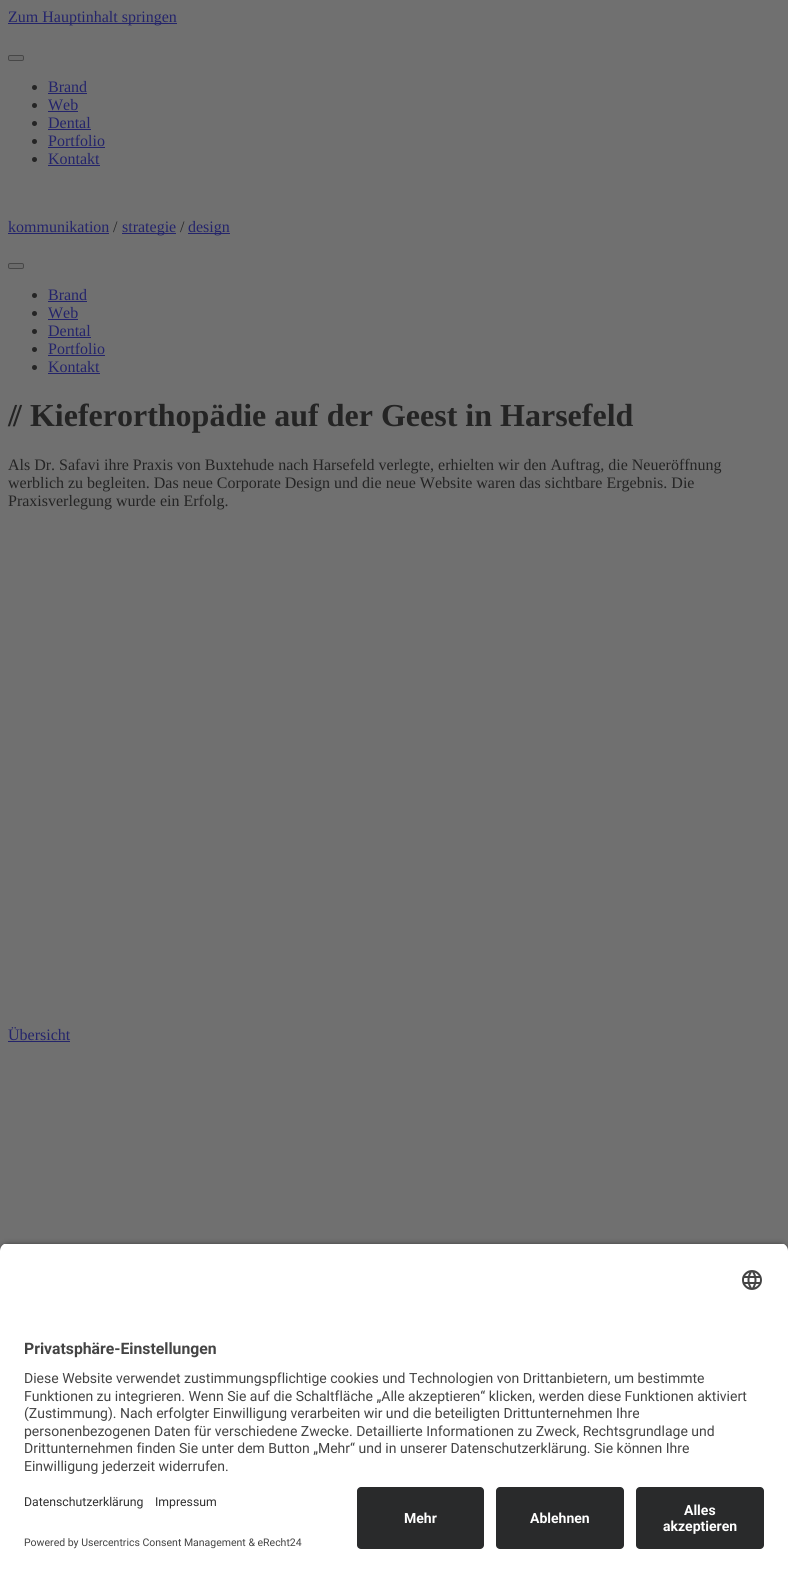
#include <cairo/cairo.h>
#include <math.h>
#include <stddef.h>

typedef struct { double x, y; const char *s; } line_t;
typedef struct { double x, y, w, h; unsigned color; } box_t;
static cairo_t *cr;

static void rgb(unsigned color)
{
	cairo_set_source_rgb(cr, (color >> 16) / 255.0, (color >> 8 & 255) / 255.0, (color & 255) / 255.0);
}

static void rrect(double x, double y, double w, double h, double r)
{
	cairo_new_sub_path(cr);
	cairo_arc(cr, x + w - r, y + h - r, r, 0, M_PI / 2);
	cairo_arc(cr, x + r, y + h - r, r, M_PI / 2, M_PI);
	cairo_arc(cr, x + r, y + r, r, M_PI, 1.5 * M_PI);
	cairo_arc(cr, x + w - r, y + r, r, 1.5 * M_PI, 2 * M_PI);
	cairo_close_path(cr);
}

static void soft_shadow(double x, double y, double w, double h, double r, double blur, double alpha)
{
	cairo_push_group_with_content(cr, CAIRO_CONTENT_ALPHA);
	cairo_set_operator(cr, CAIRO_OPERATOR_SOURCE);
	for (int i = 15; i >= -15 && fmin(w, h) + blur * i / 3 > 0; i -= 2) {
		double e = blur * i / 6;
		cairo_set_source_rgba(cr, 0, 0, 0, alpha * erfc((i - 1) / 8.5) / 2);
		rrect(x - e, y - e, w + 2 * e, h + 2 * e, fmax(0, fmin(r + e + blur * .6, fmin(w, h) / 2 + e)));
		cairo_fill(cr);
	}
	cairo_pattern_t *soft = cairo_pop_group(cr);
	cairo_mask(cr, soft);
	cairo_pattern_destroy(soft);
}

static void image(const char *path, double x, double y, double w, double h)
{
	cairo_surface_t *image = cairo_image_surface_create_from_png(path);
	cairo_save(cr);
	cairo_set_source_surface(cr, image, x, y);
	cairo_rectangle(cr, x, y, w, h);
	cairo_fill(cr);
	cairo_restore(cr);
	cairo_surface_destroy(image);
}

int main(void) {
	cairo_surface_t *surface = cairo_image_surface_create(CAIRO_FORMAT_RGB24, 788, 1573);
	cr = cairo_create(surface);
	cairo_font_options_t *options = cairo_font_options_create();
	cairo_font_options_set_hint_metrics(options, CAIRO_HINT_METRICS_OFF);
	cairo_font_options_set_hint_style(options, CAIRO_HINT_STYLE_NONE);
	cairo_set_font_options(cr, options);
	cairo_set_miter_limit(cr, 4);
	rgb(0x707070);
	cairo_paint(cr);
	rgb(0x24246b);
	cairo_rectangle(cr, 8, 23, 169, 1);
	cairo_fill(cr);
	rgb(0x6b6b6b);
	rrect(8.5, 55.5, 15, 5, 1.5);
	cairo_fill_preserve(cr);
	rgb(0x474747);
	cairo_set_line_width(cr, 1);
	cairo_stroke(cr);
	rgb(0x242424);
	cairo_arc(cr, 34.5, 87.5, 2.5, 0, 2 * M_PI);
	cairo_fill(cr);
	rgb(0x24246b);
	cairo_rectangle(cr, 48, 93, 39, 1);
	cairo_fill(cr);
	rgb(0x242424);
	cairo_arc(cr, 34.5, 105.5, 2.5, 0, 2 * M_PI);
	cairo_fill(cr);
	rgb(0x24246b);
	cairo_rectangle(cr, 48, 111, 30, 1);
	cairo_fill(cr);
	rgb(0x242424);
	cairo_arc(cr, 34.5, 123.5, 2.5, 0, 2 * M_PI);
	cairo_fill(cr);
	rgb(0x24246b);
	cairo_rectangle(cr, 48, 129, 43, 1);
	cairo_fill(cr);
	rgb(0x242424);
	cairo_arc(cr, 34.5, 141.5, 2.5, 0, 2 * M_PI);
	cairo_fill(cr);
	rgb(0x24246b);
	cairo_rectangle(cr, 48, 147, 57, 1);
	cairo_fill(cr);
	rgb(0x242424);
	cairo_arc(cr, 34.5, 159.5, 2.5, 0, 2 * M_PI);
	cairo_fill(cr);
	{
		static const box_t items[] = {
			{48, 165, 52, 1, 0x24246b},
			{8, 233, 101, 1, 0x24246b},
			{122, 233, 54, 1, 0x24246b},
			{188, 233, 42, 1, 0x24246b},
		};
		for (size_t i = 0; i < sizeof items / sizeof *items; i++) {
			rgb(items[i].color);
			cairo_rectangle(cr, items[i].x, items[i].y, items[i].w, items[i].h);
			cairo_fill(cr);
		}
	}
	rgb(0x6b6b6b);
	rrect(8.5, 263.5, 15, 5, 1.5);
	cairo_fill_preserve(cr);
	rgb(0x474747);
	cairo_stroke(cr);
	rgb(0x242424);
	cairo_arc(cr, 34.5, 295.5, 2.5, 0, 2 * M_PI);
	cairo_fill(cr);
	rgb(0x24246b);
	cairo_rectangle(cr, 48, 301, 39, 1);
	cairo_fill(cr);
	rgb(0x242424);
	cairo_arc(cr, 34.5, 313.5, 2.5, 0, 2 * M_PI);
	cairo_fill(cr);
	rgb(0x24246b);
	cairo_rectangle(cr, 48, 319, 30, 1);
	cairo_fill(cr);
	rgb(0x242424);
	cairo_arc(cr, 34.5, 331.5, 2.5, 0, 2 * M_PI);
	cairo_fill(cr);
	rgb(0x24246b);
	cairo_rectangle(cr, 48, 337, 43, 1);
	cairo_fill(cr);
	rgb(0x242424);
	cairo_arc(cr, 34.5, 349.5, 2.5, 0, 2 * M_PI);
	cairo_fill(cr);
	rgb(0x24246b);
	cairo_rectangle(cr, 48, 355, 57, 1);
	cairo_fill(cr);
	rgb(0x242424);
	cairo_arc(cr, 34.5, 367.5, 2.5, 0, 2 * M_PI);
	cairo_fill(cr);
	rgb(0x24246b);
	cairo_rectangle(cr, 48, 373, 52, 1);
	cairo_fill(cr);
	cairo_rectangle(cr, 8, 1041, 62, 1);
	cairo_fill(cr);
	rgb(0x000000);
	soft_shadow(0, 1246, 788, 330, 8, 3.5, 0.8);
	cairo_save(cr);
	cairo_new_path(cr);
	cairo_move_to(cr, 8, 1243);
	cairo_line_to(cr, 780, 1243);
	cairo_curve_to(cr, 784.5, 1243, 788, 1246.5, 788, 1251);
	cairo_line_to(cr, 788, 1479);
	cairo_line_to(cr, 0, 1479);
	cairo_line_to(cr, 0, 1251);
	cairo_curve_to(cr, 0, 1246.5, 3.5, 1243, 8, 1243);
	cairo_close_path(cr);
	cairo_clip(cr);
	rgb(0xffffff);
	cairo_rectangle(cr, 0, 1244, 788, 235);
	cairo_fill(cr);
	cairo_restore(cr);
	image("img/1.png", 742, 1270, 20, 20);
	rgb(0xffffff);
	cairo_rectangle(cr, 0, 1479, 788, 94);
	cairo_fill(cr);
	rgb(0x292a2b);
	rrect(357, 1487, 127, 62, 4);
	cairo_fill(cr);
	rrect(496, 1487, 128, 62, 4);
	cairo_fill(cr);
	rrect(636, 1487, 128, 62, 4);
	cairo_fill(cr);
	cairo_select_font_face(cr, "Liberation Serif", CAIRO_FONT_SLANT_NORMAL, CAIRO_FONT_WEIGHT_NORMAL);
	cairo_set_font_size(cr, 16);
	rgb(0x24246b);
	{
		static const line_t items[] = {
			{8, 22, "Zum Hauptinhalt springen"},
			{48, 92, "Brand"},
			{48, 110, "Web"},
			{48, 128, "Dental"},
			{48, 146, "Portfolio"},
			{48, 164, "Kontakt"},
			{8, 232, "kommunikation"},
		};
		for (size_t i = 0; i < sizeof items / sizeof *items; i++) {
			cairo_move_to(cr, items[i].x, items[i].y);
			cairo_show_text(cr, items[i].s);
		}
	}
	rgb(0x242424);
	cairo_move_to(cr, 113, 232);
	cairo_show_text(cr, "/");
	rgb(0x24246b);
	cairo_move_to(cr, 122, 232);
	cairo_show_text(cr, "strategie");
	rgb(0x242424);
	cairo_move_to(cr, 180, 232);
	cairo_show_text(cr, "/");
	rgb(0x24246b);
	{
		static const line_t items[] = {
			{188, 232, "design"},
			{48, 300, "Brand"},
			{48, 318, "Web"},
			{48, 336, "Dental"},
			{48, 354, "Portfolio"},
			{48, 372, "Kontakt"},
		};
		for (size_t i = 0; i < sizeof items / sizeof *items; i++) {
			cairo_move_to(cr, items[i].x, items[i].y);
			cairo_show_text(cr, items[i].s);
		}
	}
	cairo_select_font_face(cr, "Liberation Serif", CAIRO_FONT_SLANT_NORMAL, CAIRO_FONT_WEIGHT_BOLD);
	cairo_set_font_size(cr, 32);
	rgb(0x242424);
	cairo_move_to(cr, 8, 426);
	cairo_show_text(cr, "/");
	cairo_move_to(cr, 13, 426);
	cairo_show_text(cr, "/ Kieferorthopädie auf der Geest in Harsefeld");
	cairo_select_font_face(cr, "Liberation Serif", CAIRO_FONT_SLANT_NORMAL, CAIRO_FONT_WEIGHT_NORMAL);
	cairo_set_font_size(cr, 16);
	{
		static const line_t items[] = {
			{8, 470, "Als Dr. Safavi ihre Praxis von Buxtehude nach Harsefeld verlegte, erhielten wir den Auftrag, die Neueröffnung"},
			{8, 488, "werblich zu begleiten. Das neue Corporate Design und die neue Website waren das sichtbare Ergebnis. Die"},
			{8, 506, "Praxisverlegung wurde ein Erfolg."},
		};
		for (size_t i = 0; i < sizeof items / sizeof *items; i++) {
			cairo_move_to(cr, items[i].x, items[i].y);
			cairo_show_text(cr, items[i].s);
		}
	}
	rgb(0x24246b);
	cairo_move_to(cr, 8, 1040);
	cairo_show_text(cr, "Übersicht");
	cairo_select_font_face(cr, "Roboto", CAIRO_FONT_SLANT_NORMAL, CAIRO_FONT_WEIGHT_BOLD);
	cairo_set_font_size(cr, 15.75);
	rgb(0x444444);
	cairo_move_to(cr, 24, 1354);
	cairo_show_text(cr, "Privatsphäre-Einstellungen");
	cairo_select_font_face(cr, "Roboto", CAIRO_FONT_SLANT_NORMAL, CAIRO_FONT_WEIGHT_NORMAL);
	cairo_set_font_size(cr, 14);
	{
		static const line_t items[] = {
			{24, 1383, "Diese Website verwendet zustimmungspflichtige cookies und Technologien von Drittanbietern, um bestimmte"},
			{24, 1401, "Funktionen zu integrieren. Wenn Sie auf die Schaltfläche „Alle akzeptieren“ klicken, werden diese Funktionen aktiviert"},
			{24, 1418, "(Zustimmung). Nach erfolgter Einwilligung verarbeiten wir und die beteiligten Drittunternehmen Ihre"},
			{24, 1436, "personenbezogenen Daten für verschiedene Zwecke. Detaillierte Informationen zu Zweck, Rechtsgrundlage und"},
			{24, 1453, "Drittunternehmen finden Sie unter dem Button „Mehr“ und in unserer Datenschutzerklärung. Sie können Ihre"},
			{24, 1471, "Einwilligung jederzeit widerrufen."},
		};
		for (size_t i = 0; i < sizeof items / sizeof *items; i++) {
			cairo_move_to(cr, items[i].x, items[i].y);
			cairo_show_text(cr, items[i].s);
		}
	}
	cairo_set_font_size(cr, 12.25);
	rgb(0x303030);
	cairo_move_to(cr, 24, 1506);
	cairo_show_text(cr, "Datenschutzerklärung");
	cairo_move_to(cr, 155, 1506);
	cairo_show_text(cr, "Impressum");
	cairo_set_font_size(cr, 10.5);
	rgb(0x444444);
	cairo_move_to(cr, 24, 1546);
	cairo_show_text(cr, "Powered by Usercentrics Consent Management & eRecht24");
	cairo_select_font_face(cr, "Roboto", CAIRO_FONT_SLANT_NORMAL, CAIRO_FONT_WEIGHT_BOLD);
	cairo_set_font_size(cr, 14);
	rgb(0xffffff);
	{
		static const line_t items[] = {
			{404, 1523, "Mehr"},
			{530, 1523, "Ablehnen"},
			{684, 1515, "Alles"},
			{663, 1531, "akzeptieren"},
		};
		for (size_t i = 0; i < sizeof items / sizeof *items; i++) {
			cairo_move_to(cr, items[i].x, items[i].y);
			cairo_show_text(cr, items[i].s);
		}
	}
	cairo_surface_write_to_png(surface, "page.png");
	cairo_font_options_destroy(options);
	cairo_destroy(cr);
	cairo_surface_destroy(surface);
	return 0;
}
